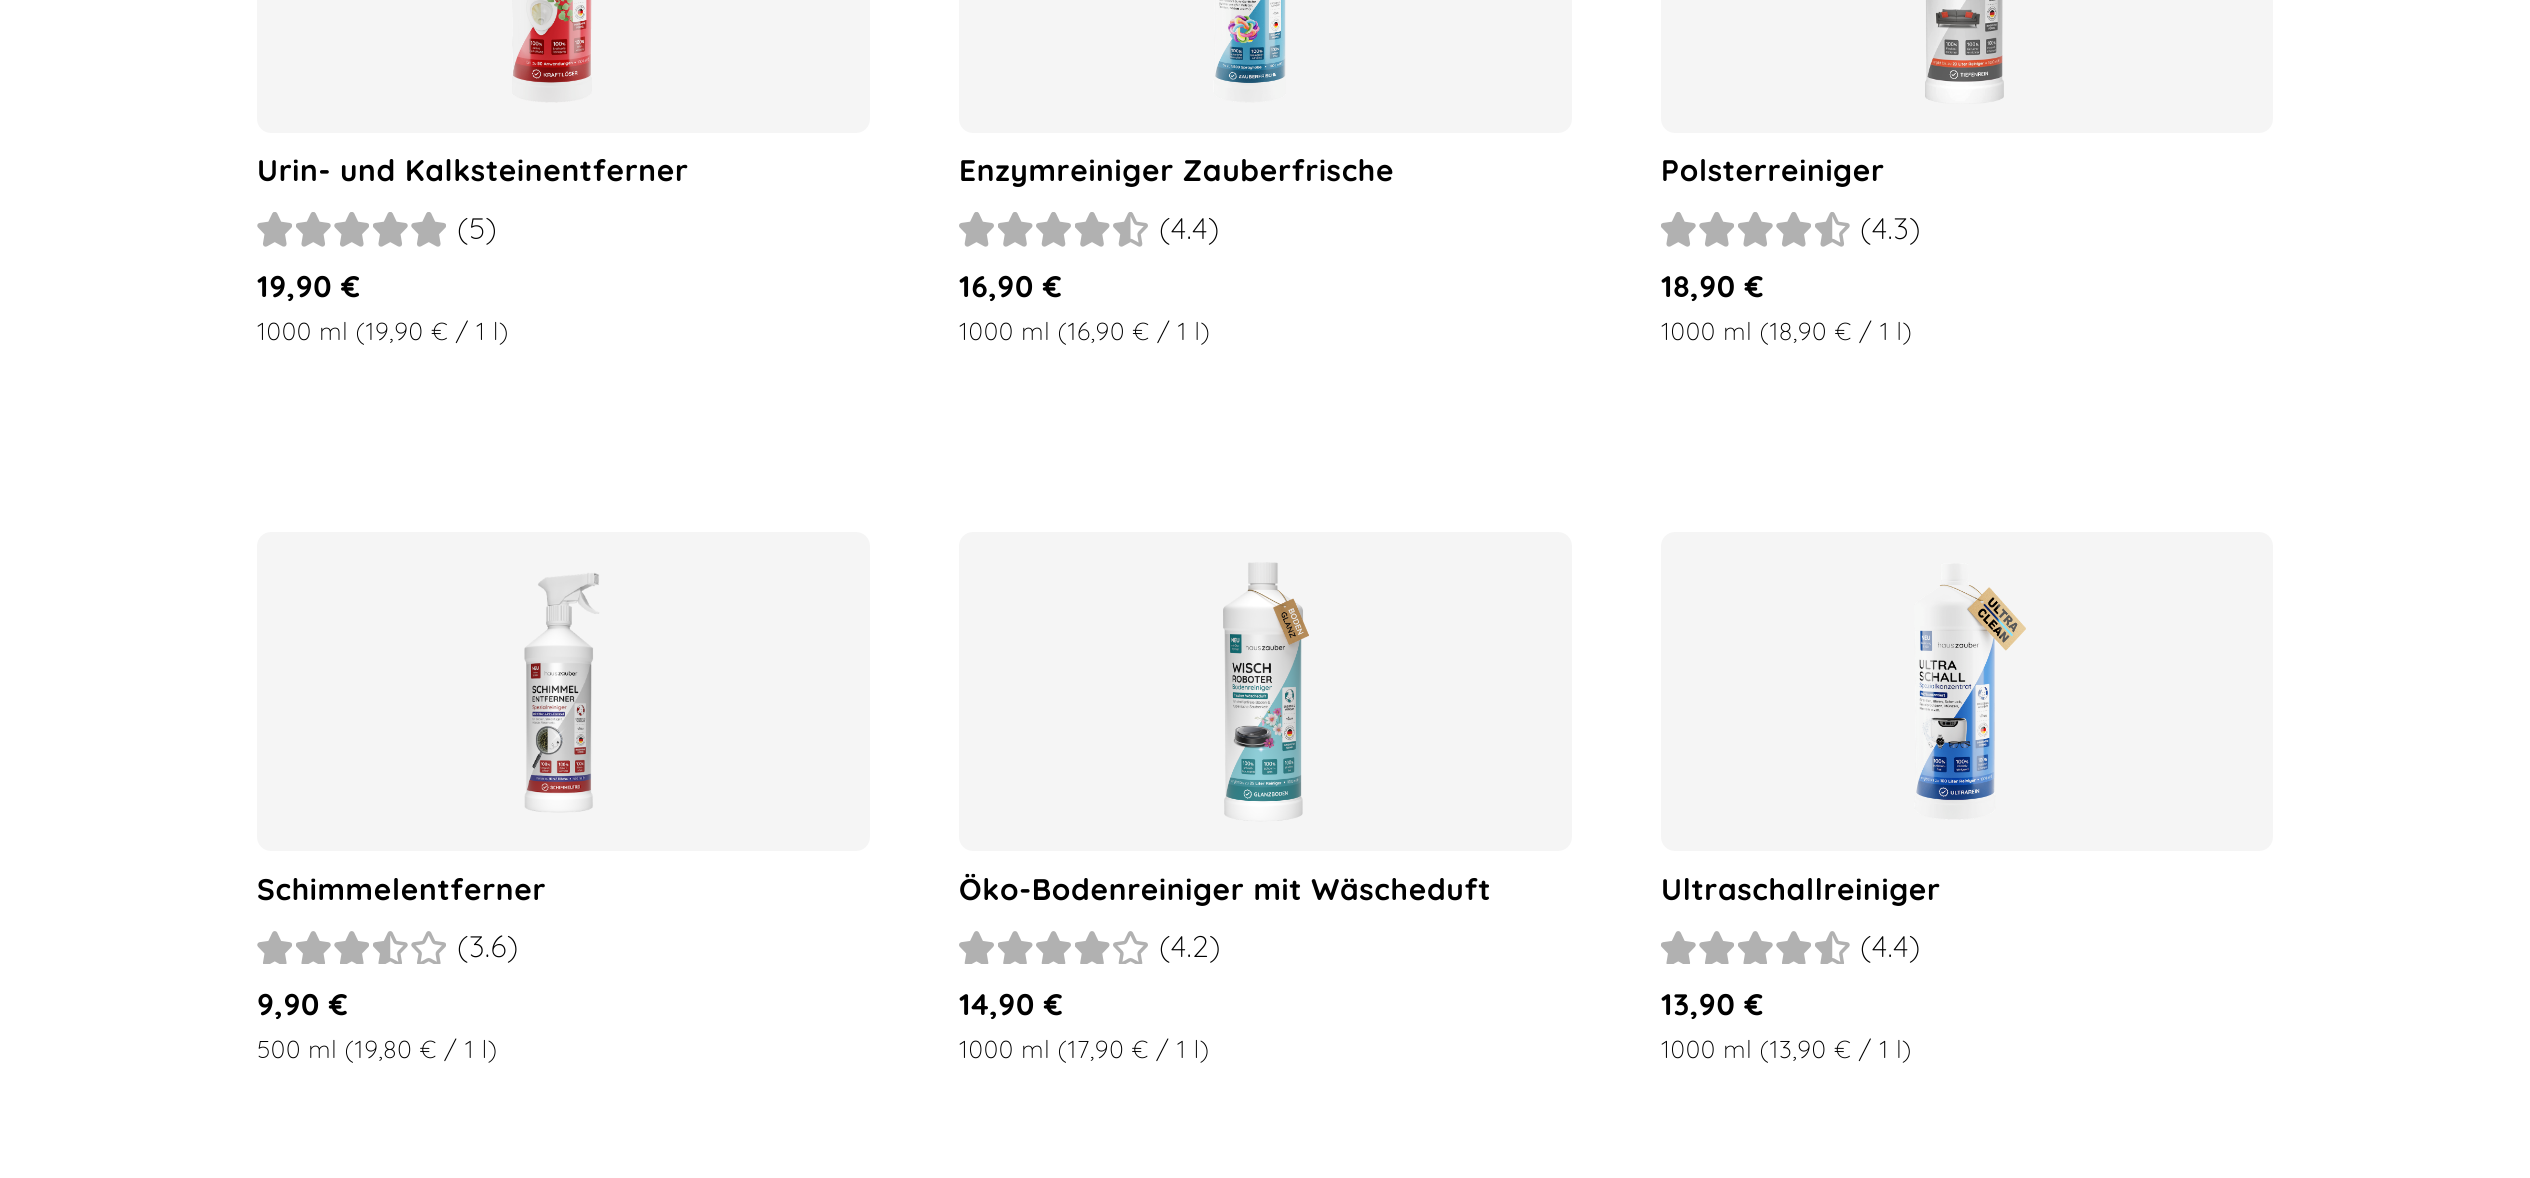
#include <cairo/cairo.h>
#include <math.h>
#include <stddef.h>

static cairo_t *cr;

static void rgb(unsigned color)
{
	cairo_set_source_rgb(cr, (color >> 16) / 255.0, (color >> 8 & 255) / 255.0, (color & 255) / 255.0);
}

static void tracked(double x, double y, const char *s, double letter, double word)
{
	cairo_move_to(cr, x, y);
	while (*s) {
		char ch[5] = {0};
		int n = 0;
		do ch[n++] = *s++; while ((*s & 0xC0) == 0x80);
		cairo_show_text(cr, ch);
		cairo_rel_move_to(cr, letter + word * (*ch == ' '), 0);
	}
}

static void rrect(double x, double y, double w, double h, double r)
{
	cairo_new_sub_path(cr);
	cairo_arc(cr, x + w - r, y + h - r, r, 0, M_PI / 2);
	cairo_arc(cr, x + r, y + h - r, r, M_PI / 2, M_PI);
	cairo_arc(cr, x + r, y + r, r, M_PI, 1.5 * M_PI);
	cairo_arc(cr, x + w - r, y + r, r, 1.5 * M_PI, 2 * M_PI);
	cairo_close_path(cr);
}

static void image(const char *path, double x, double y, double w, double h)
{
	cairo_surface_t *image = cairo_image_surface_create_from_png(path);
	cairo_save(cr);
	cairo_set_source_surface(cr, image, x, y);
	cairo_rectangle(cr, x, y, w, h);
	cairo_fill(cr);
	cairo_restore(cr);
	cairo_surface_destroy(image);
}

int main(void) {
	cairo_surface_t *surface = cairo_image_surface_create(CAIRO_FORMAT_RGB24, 2530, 1178);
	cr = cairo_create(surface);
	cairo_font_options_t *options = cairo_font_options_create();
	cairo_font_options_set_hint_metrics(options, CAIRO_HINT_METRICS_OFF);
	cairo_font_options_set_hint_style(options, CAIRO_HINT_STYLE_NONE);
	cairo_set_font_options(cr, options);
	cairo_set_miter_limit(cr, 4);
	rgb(0xffffff);
	cairo_paint(cr);
	rgb(0xf5f5f5);
	rrect(257, -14, 613, 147, 14);
	cairo_fill(cr);
	image("img/1.png", 512, 0, 80, 103);
	image("img/2.png", 257, 212, 35, 35);
	image("img/3.png", 296, 212, 35, 35);
	image("img/2.png", 334, 212, 35, 35);
	image("img/3.png", 373, 212, 35, 35);
	image("img/2.png", 411, 212, 35, 35);
	rrect(959, -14, 613, 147, 14);
	cairo_fill(cr);
	image("img/4.png", 1213, 0, 73, 103);
	image("img/5.png", 959, 212, 35, 35);
	image("img/6.png", 998, 212, 35, 35);
	image("img/5.png", 1036, 212, 35, 35);
	image("img/6.png", 1075, 212, 35, 35);
	image("img/7.png", 1113, 212, 35, 35);
	rrect(1661, -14, 612, 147, 14);
	cairo_fill(cr);
	image("img/8.png", 1925, 0, 79, 104);
	image("img/3.png", 1661, 212, 35, 35);
	image("img/2.png", 1699, 212, 35, 35);
	image("img/3.png", 1738, 212, 35, 35);
	image("img/2.png", 1776, 212, 35, 35);
	image("img/9.png", 1815, 212, 35, 35);
	rrect(257, 532, 613, 319, 14);
	cairo_fill(cr);
	image("img/10.png", 524, 572, 76, 241);
	image("img/11.png", 257, 931, 35, 33);
	image("img/12.png", 296, 931, 35, 33);
	image("img/11.png", 334, 931, 35, 33);
	image("img/13.png", 373, 931, 35, 33);
	image("img/14.png", 411, 931, 35, 33);
	rrect(959, 532, 613, 319, 14);
	cairo_fill(cr);
	image("img/15.png", 1223, 562, 86, 260);
	image("img/16.png", 959, 931, 35, 33);
	image("img/17.png", 998, 931, 35, 33);
	image("img/16.png", 1036, 931, 35, 33);
	image("img/17.png", 1075, 931, 35, 33);
	image("img/18.png", 1113, 931, 35, 33);
	rrect(1661, 532, 612, 319, 14);
	cairo_fill(cr);
	image("img/19.png", 1914, 563, 112, 257);
	image("img/12.png", 1661, 931, 35, 33);
	image("img/11.png", 1699, 931, 35, 33);
	image("img/12.png", 1738, 931, 35, 33);
	image("img/11.png", 1776, 931, 35, 33);
	image("img/13.png", 1815, 931, 35, 33);
	cairo_select_font_face(cr, "Quicksand", CAIRO_FONT_SLANT_NORMAL, CAIRO_FONT_WEIGHT_BOLD);
	cairo_set_font_size(cr, 29.75);
	rgb(0x000000);
	tracked(257, 181, "Urin- und Kalksteinentferner", 0.7, 0);
	cairo_select_font_face(cr, "Quicksand Light", CAIRO_FONT_SLANT_NORMAL, CAIRO_FONT_WEIGHT_NORMAL);
	tracked(457, 239, "(5)", 0.7, 0);
	cairo_select_font_face(cr, "Quicksand", CAIRO_FONT_SLANT_NORMAL, CAIRO_FONT_WEIGHT_BOLD);
	tracked(257, 297, "19,90 €", 0.7, 0);
	cairo_select_font_face(cr, "Quicksand Light", CAIRO_FONT_SLANT_NORMAL, CAIRO_FONT_WEIGHT_NORMAL);
	cairo_set_font_size(cr, 24.5);
	tracked(257, 340, "1000 ml (19,90 € / 1 l)", 0.7, 0);
	cairo_select_font_face(cr, "Quicksand", CAIRO_FONT_SLANT_NORMAL, CAIRO_FONT_WEIGHT_BOLD);
	cairo_set_font_size(cr, 29.75);
	tracked(959, 181, "Enzymreiniger Zauberfrische", 0.7, 0);
	cairo_select_font_face(cr, "Quicksand Light", CAIRO_FONT_SLANT_NORMAL, CAIRO_FONT_WEIGHT_NORMAL);
	tracked(1159, 239, "(4.4)", 0.7, 0);
	cairo_select_font_face(cr, "Quicksand", CAIRO_FONT_SLANT_NORMAL, CAIRO_FONT_WEIGHT_BOLD);
	tracked(959, 297, "16,90 €", 0.7, 0);
	cairo_select_font_face(cr, "Quicksand Light", CAIRO_FONT_SLANT_NORMAL, CAIRO_FONT_WEIGHT_NORMAL);
	cairo_set_font_size(cr, 24.5);
	tracked(959, 340, "1000 ml (16,90 € / 1 l)", 0.7, 0);
	cairo_select_font_face(cr, "Quicksand", CAIRO_FONT_SLANT_NORMAL, CAIRO_FONT_WEIGHT_BOLD);
	cairo_set_font_size(cr, 29.75);
	tracked(1661, 181, "Polsterreiniger", 0.7, 0);
	cairo_select_font_face(cr, "Quicksand Light", CAIRO_FONT_SLANT_NORMAL, CAIRO_FONT_WEIGHT_NORMAL);
	tracked(1860, 239, "(4.3)", 0.7, 0);
	cairo_select_font_face(cr, "Quicksand", CAIRO_FONT_SLANT_NORMAL, CAIRO_FONT_WEIGHT_BOLD);
	tracked(1661, 297, "18,90 €", 0.7, 0);
	cairo_select_font_face(cr, "Quicksand Light", CAIRO_FONT_SLANT_NORMAL, CAIRO_FONT_WEIGHT_NORMAL);
	cairo_set_font_size(cr, 24.5);
	tracked(1661, 340, "1000 ml (18,90 € / 1 l)", 0.7, 0);
	cairo_select_font_face(cr, "Quicksand", CAIRO_FONT_SLANT_NORMAL, CAIRO_FONT_WEIGHT_BOLD);
	cairo_set_font_size(cr, 29.75);
	tracked(257, 900, "Schimmelentferner", 0.7, 0);
	cairo_select_font_face(cr, "Quicksand Light", CAIRO_FONT_SLANT_NORMAL, CAIRO_FONT_WEIGHT_NORMAL);
	tracked(457, 957, "(3.6)", 0.7, 0);
	cairo_select_font_face(cr, "Quicksand", CAIRO_FONT_SLANT_NORMAL, CAIRO_FONT_WEIGHT_BOLD);
	tracked(257, 1015, "9,90 €", 0.7, 0);
	cairo_select_font_face(cr, "Quicksand Light", CAIRO_FONT_SLANT_NORMAL, CAIRO_FONT_WEIGHT_NORMAL);
	cairo_set_font_size(cr, 24.5);
	tracked(257, 1058, "500 ml (19,80 € / 1 l)", 0.7, 0);
	cairo_select_font_face(cr, "Quicksand", CAIRO_FONT_SLANT_NORMAL, CAIRO_FONT_WEIGHT_BOLD);
	cairo_set_font_size(cr, 29.75);
	tracked(959, 900, "Öko-Bodenreiniger mit Wäscheduft", 0.7, 0);
	cairo_select_font_face(cr, "Quicksand Light", CAIRO_FONT_SLANT_NORMAL, CAIRO_FONT_WEIGHT_NORMAL);
	tracked(1159, 957, "(4.2)", 0.7, 0);
	cairo_select_font_face(cr, "Quicksand", CAIRO_FONT_SLANT_NORMAL, CAIRO_FONT_WEIGHT_BOLD);
	tracked(959, 1015, "14,90 €", 0.7, 0);
	cairo_select_font_face(cr, "Quicksand Light", CAIRO_FONT_SLANT_NORMAL, CAIRO_FONT_WEIGHT_NORMAL);
	cairo_set_font_size(cr, 24.5);
	tracked(959, 1058, "1000 ml (17,90 € / 1 l)", 0.7, 0);
	cairo_select_font_face(cr, "Quicksand", CAIRO_FONT_SLANT_NORMAL, CAIRO_FONT_WEIGHT_BOLD);
	cairo_set_font_size(cr, 29.75);
	tracked(1661, 900, "Ultraschallreiniger", 0.7, 0);
	cairo_select_font_face(cr, "Quicksand Light", CAIRO_FONT_SLANT_NORMAL, CAIRO_FONT_WEIGHT_NORMAL);
	tracked(1860, 957, "(4.4)", 0.7, 0);
	cairo_select_font_face(cr, "Quicksand", CAIRO_FONT_SLANT_NORMAL, CAIRO_FONT_WEIGHT_BOLD);
	tracked(1661, 1015, "13,90 €", 0.7, 0);
	cairo_select_font_face(cr, "Quicksand Light", CAIRO_FONT_SLANT_NORMAL, CAIRO_FONT_WEIGHT_NORMAL);
	cairo_set_font_size(cr, 24.5);
	tracked(1661, 1058, "1000 ml (13,90 € / 1 l)", 0.7, 0);
	cairo_surface_write_to_png(surface, "page.png");
	cairo_font_options_destroy(options);
	cairo_destroy(cr);
	cairo_surface_destroy(surface);
	return 0;
}
